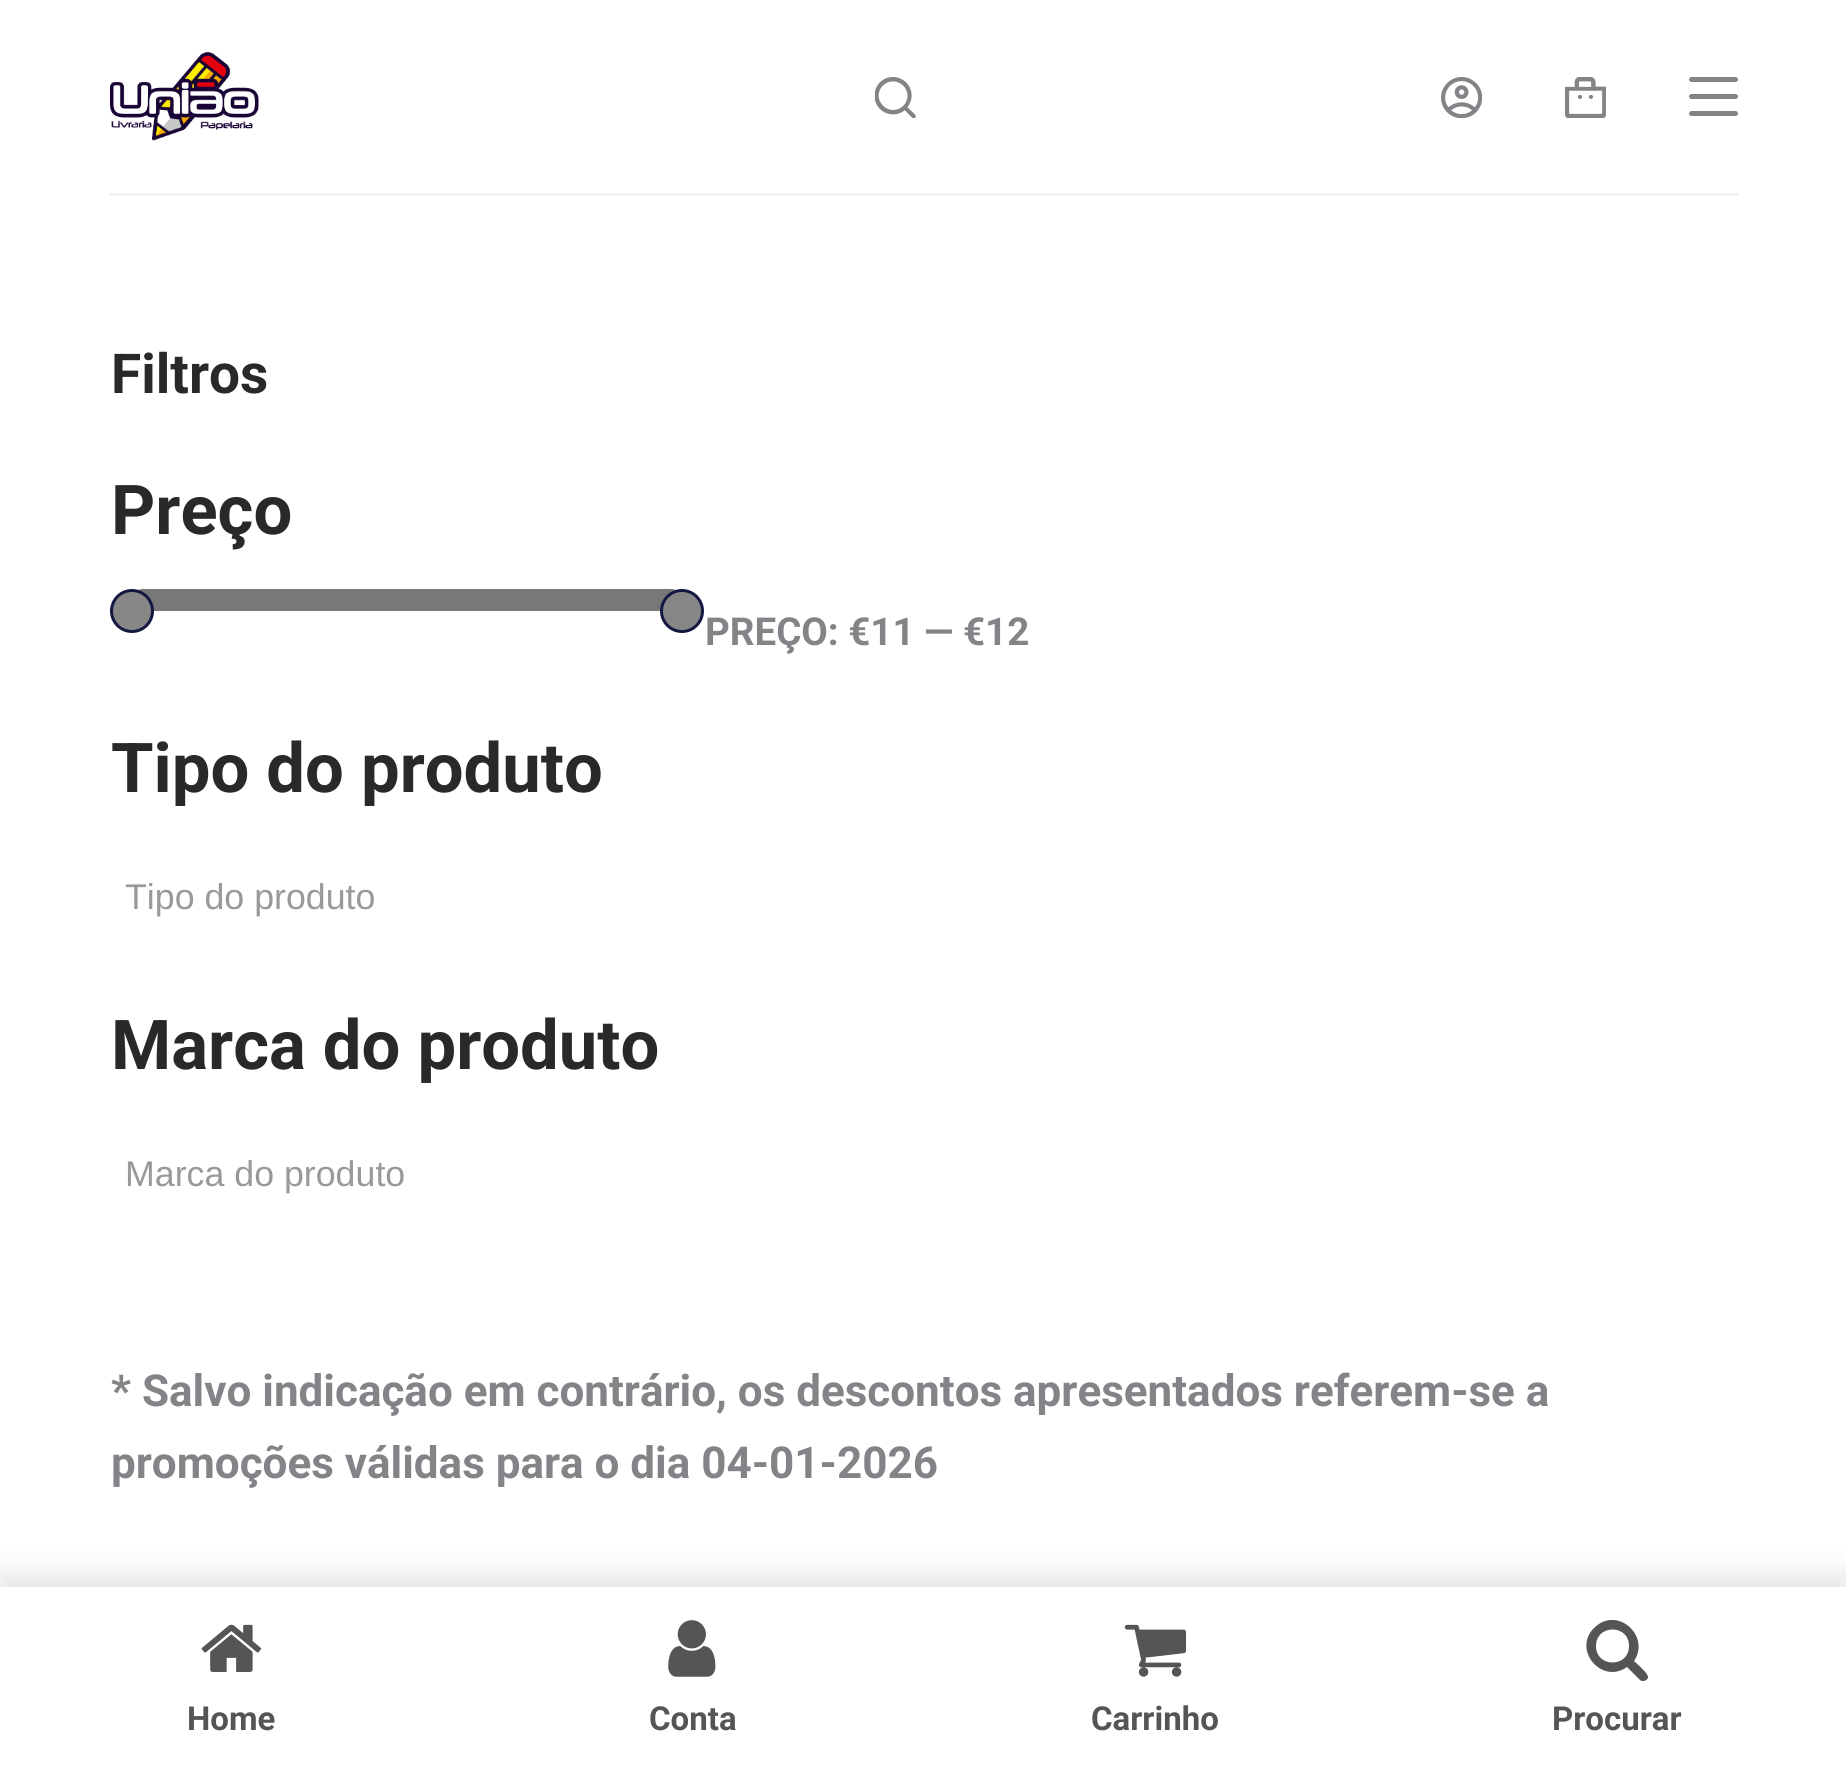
#include <cairo/cairo.h>
#include <math.h>
#include <stddef.h>

typedef struct { double x, y; const char *s; } line_t;
static cairo_t *cr;

static void rgb(unsigned color)
{
	cairo_set_source_rgb(cr, (color >> 16) / 255.0, (color >> 8 & 255) / 255.0, (color & 255) / 255.0);
}

static void rrect(double x, double y, double w, double h, double r)
{
	cairo_new_sub_path(cr);
	cairo_arc(cr, x + w - r, y + h - r, r, 0, M_PI / 2);
	cairo_arc(cr, x + r, y + h - r, r, M_PI / 2, M_PI);
	cairo_arc(cr, x + r, y + r, r, M_PI, 1.5 * M_PI);
	cairo_arc(cr, x + w - r, y + r, r, 1.5 * M_PI, 2 * M_PI);
	cairo_close_path(cr);
}

static void soft_shadow(double x, double y, double w, double h, double r, double blur, double alpha)
{
	cairo_push_group_with_content(cr, CAIRO_CONTENT_ALPHA);
	cairo_set_operator(cr, CAIRO_OPERATOR_SOURCE);
	for (int i = 15; i >= -15 && fmin(w, h) + blur * i / 3 > 0; i -= 2) {
		double e = blur * i / 6;
		cairo_set_source_rgba(cr, 0, 0, 0, alpha * erfc((i - 1) / 8.5) / 2);
		rrect(x - e, y - e, w + 2 * e, h + 2 * e, fmax(0, fmin(r + e + blur * .6, fmin(w, h) / 2 + e)));
		cairo_fill(cr);
	}
	cairo_pattern_t *soft = cairo_pop_group(cr);
	cairo_mask(cr, soft);
	cairo_pattern_destroy(soft);
}

static void image(const char *path, double x, double y, double w, double h)
{
	cairo_surface_t *image = cairo_image_surface_create_from_png(path);
	cairo_save(cr);
	cairo_set_source_surface(cr, image, x, y);
	cairo_rectangle(cr, x, y, w, h);
	cairo_fill(cr);
	cairo_restore(cr);
	cairo_surface_destroy(image);
}

int main(void) {
	cairo_surface_t *surface = cairo_image_surface_create(CAIRO_FORMAT_RGB24, 1846, 1774);
	cr = cairo_create(surface);
	cairo_font_options_t *options = cairo_font_options_create();
	cairo_font_options_set_hint_metrics(options, CAIRO_HINT_METRICS_OFF);
	cairo_font_options_set_hint_style(options, CAIRO_HINT_STYLE_NONE);
	cairo_set_font_options(cr, options);
	cairo_set_miter_limit(cr, 4);
	rgb(0xffffff);
	cairo_paint(cr);
	rgb(0xf2f2f2);
	cairo_rectangle(cr, 110, 193, 1628, 3);
	cairo_fill(cr);
	image("img/1.png", 110, 52, 149, 89);
	image("img/2.png", 875, 77, 41, 41);
	image("img/3.png", 1441, 77, 41, 41);
	image("img/4.png", 1565, 77, 41, 41);
	rgb(0x828487);
	rrect(1689, 77, 49, 5, 2.5);
	cairo_fill(cr);
	rrect(1689, 94, 49, 5, 2.5);
	cairo_fill(cr);
	rrect(1689, 111, 49, 5, 2.5);
	cairo_fill(cr);
	rgb(0x787878);
	rrect(132, 589, 550, 22, 11);
	cairo_fill(cr);
	rgb(0x878787);
	cairo_arc(cr, 132, 611, 20.5, 0, 2 * M_PI);
	cairo_fill_preserve(cr);
	rgb(0x141741);
	cairo_set_line_width(cr, 3);
	cairo_stroke(cr);
	rgb(0x878787);
	cairo_arc(cr, 682, 611, 20.5, 0, 2 * M_PI);
	cairo_fill_preserve(cr);
	rgb(0x141741);
	cairo_stroke(cr);
	rgb(0x000000);
	soft_shadow(0, 1573, 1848, 190, 0, 14, 0.1);
	rgb(0xffffff);
	cairo_rectangle(cr, 0, 1587, 1846, 187);
	cairo_fill(cr);
	image("img/5.png", 201, 1624, 61, 48);
	image("img/6.png", 668, 1620, 48, 57);
	image("img/7.png", 1124, 1624, 63, 53);
	rgb(0x555555);
	cairo_new_path(cr);
	cairo_move_to(cr, 1629, 1646);
	cairo_curve_to(cr, 1629, 1668, 1596, 1668, 1596, 1646);
	cairo_curve_to(cr, 1596, 1624, 1629, 1624, 1629, 1646);
	cairo_close_path(cr);
	cairo_move_to(cr, 1648, 1677);
	cairo_curve_to(cr, 1648, 1673, 1637, 1664, 1634, 1661);
	cairo_curve_to(cr, 1651, 1636, 1617, 1605, 1594, 1628);
	cairo_curve_to(cr, 1572, 1650, 1602, 1685, 1627, 1667);
	cairo_line_to(cr, 1640, 1680);
	cairo_curve_to(cr, 1641, 1681, 1642, 1681, 1643, 1681);
	cairo_curve_to(cr, 1646, 1681, 1648, 1679, 1648, 1677);
	cairo_close_path(cr);
	cairo_fill(cr);
	cairo_select_font_face(cr, "Roboto", CAIRO_FONT_SLANT_NORMAL, CAIRO_FONT_WEIGHT_BOLD);
	cairo_set_font_size(cr, 55);
	rgb(0x28292a);
	cairo_move_to(cr, 111, 393);
	cairo_show_text(cr, "Filtros");
	cairo_set_font_size(cr, 68.75);
	cairo_move_to(cr, 111, 534);
	cairo_show_text(cr, "Preço");
	cairo_set_font_size(cr, 38.5);
	rgb(0x828487);
	cairo_move_to(cr, 705, 645);
	cairo_show_text(cr, "PREÇO: €11 — €12");
	cairo_set_font_size(cr, 68.75);
	rgb(0x28292a);
	cairo_move_to(cr, 111, 792);
	cairo_show_text(cr, "Tipo do produto");
	cairo_select_font_face(cr, "Liberation Sans", CAIRO_FONT_SLANT_NORMAL, CAIRO_FONT_WEIGHT_NORMAL);
	cairo_set_font_size(cr, 35.75);
	rgb(0x999999);
	cairo_move_to(cr, 125, 909);
	cairo_show_text(cr, "Tipo do produto");
	cairo_select_font_face(cr, "Roboto", CAIRO_FONT_SLANT_NORMAL, CAIRO_FONT_WEIGHT_BOLD);
	cairo_set_font_size(cr, 68.75);
	rgb(0x28292a);
	cairo_move_to(cr, 111, 1069);
	cairo_show_text(cr, "Marca do produto");
	cairo_select_font_face(cr, "Liberation Sans", CAIRO_FONT_SLANT_NORMAL, CAIRO_FONT_WEIGHT_NORMAL);
	cairo_set_font_size(cr, 35.75);
	rgb(0x999999);
	cairo_move_to(cr, 125, 1186);
	cairo_show_text(cr, "Marca do produto");
	cairo_select_font_face(cr, "Roboto", CAIRO_FONT_SLANT_NORMAL, CAIRO_FONT_WEIGHT_BOLD);
	cairo_set_font_size(cr, 44);
	rgb(0x828487);
	cairo_move_to(cr, 111, 1406);
	cairo_show_text(cr, "* Salvo indicação em contrário, os descontos apresentados referem-se a");
	cairo_move_to(cr, 111, 1478);
	cairo_show_text(cr, "promoções válidas para o dia 04-01-2026");
	cairo_set_font_size(cr, 33);
	rgb(0x555555);
	{
		static const line_t items[] = {
			{187, 1730, "Home"},
			{649, 1730, "Conta"},
			{1091, 1730, "Carrinho"},
			{1552, 1730, "Procurar"},
		};
		for (size_t i = 0; i < sizeof items / sizeof *items; i++) {
			cairo_move_to(cr, items[i].x, items[i].y);
			cairo_show_text(cr, items[i].s);
		}
	}
	cairo_surface_write_to_png(surface, "page.png");
	cairo_font_options_destroy(options);
	cairo_destroy(cr);
	cairo_surface_destroy(surface);
	return 0;
}
